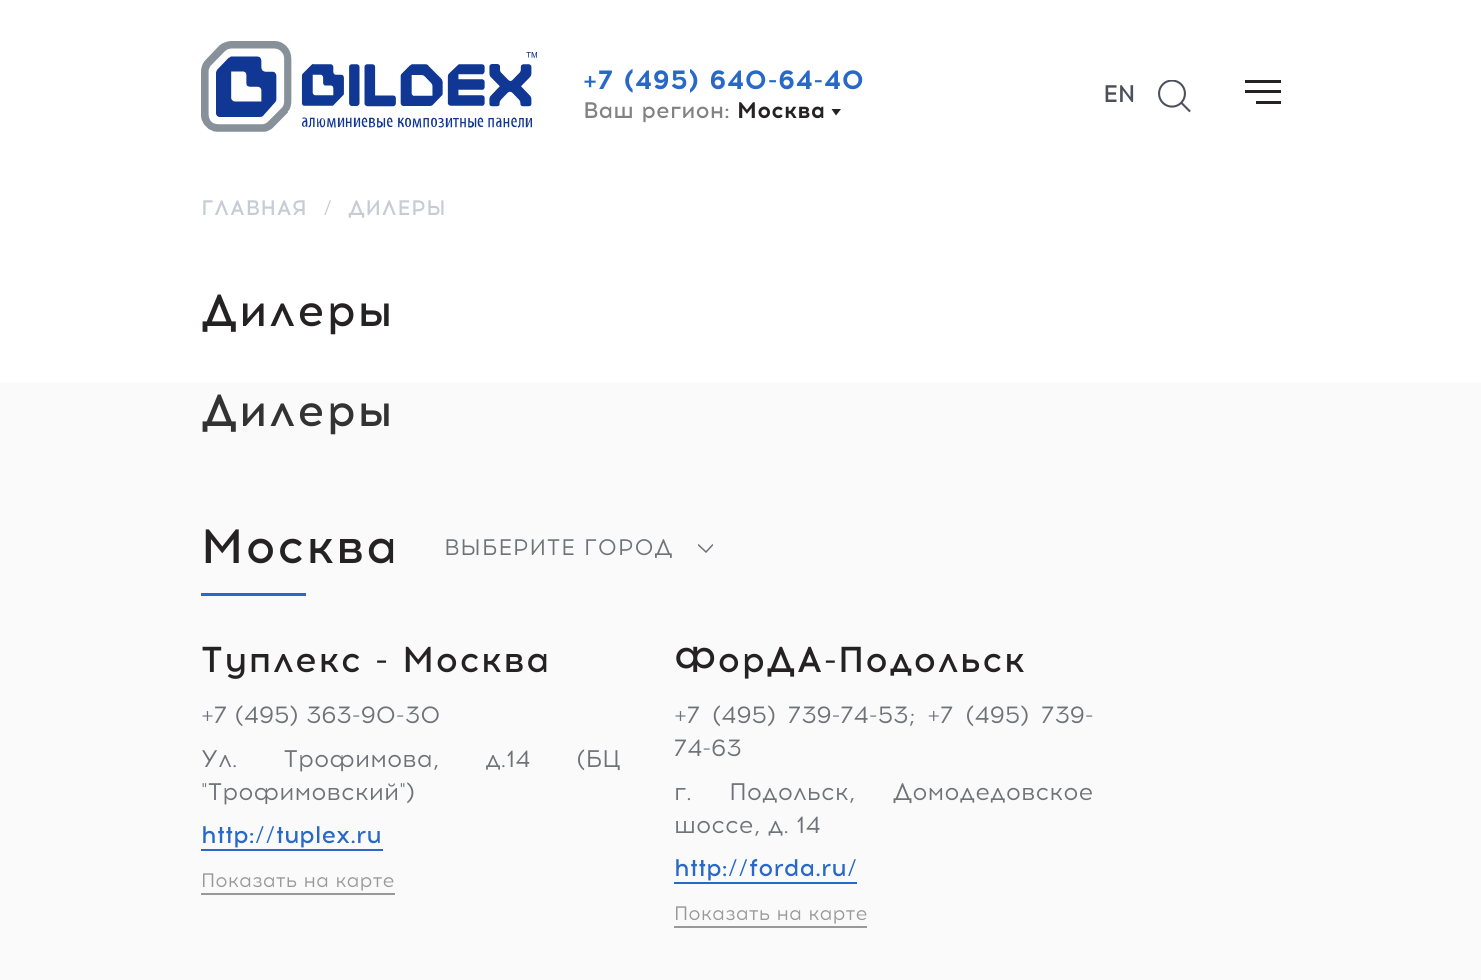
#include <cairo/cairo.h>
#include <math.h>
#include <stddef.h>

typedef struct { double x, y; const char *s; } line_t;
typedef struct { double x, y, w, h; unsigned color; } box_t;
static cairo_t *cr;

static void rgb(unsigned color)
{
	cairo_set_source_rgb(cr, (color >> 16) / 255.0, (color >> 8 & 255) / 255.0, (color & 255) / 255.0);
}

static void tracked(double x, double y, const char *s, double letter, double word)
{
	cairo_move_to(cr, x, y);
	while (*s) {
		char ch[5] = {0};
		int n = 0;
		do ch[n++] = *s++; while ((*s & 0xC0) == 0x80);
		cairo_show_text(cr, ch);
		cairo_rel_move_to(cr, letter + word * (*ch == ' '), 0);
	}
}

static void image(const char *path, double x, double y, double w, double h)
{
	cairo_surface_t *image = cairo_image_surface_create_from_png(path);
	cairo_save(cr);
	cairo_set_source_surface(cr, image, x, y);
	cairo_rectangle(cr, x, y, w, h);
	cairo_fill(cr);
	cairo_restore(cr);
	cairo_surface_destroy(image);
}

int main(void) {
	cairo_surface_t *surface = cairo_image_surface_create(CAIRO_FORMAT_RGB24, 1481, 980);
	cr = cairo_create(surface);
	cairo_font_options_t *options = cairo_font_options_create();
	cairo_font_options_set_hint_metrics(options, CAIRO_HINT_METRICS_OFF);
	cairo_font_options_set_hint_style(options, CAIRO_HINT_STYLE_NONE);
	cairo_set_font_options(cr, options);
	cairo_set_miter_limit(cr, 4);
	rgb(0xffffff);
	cairo_paint(cr);
	image("img/1.png", 201, 41, 336, 91);
	rgb(0x242223);
	cairo_new_path(cr);
	cairo_move_to(cr, 836, 115.5);
	cairo_line_to(cr, 831.5, 109);
	cairo_line_to(cr, 841, 109);
	cairo_close_path(cr);
	cairo_fill(cr);
	image("img/2.png", 1158, 80, 33, 33);
	{
		static const box_t items[] = {
			{1245, 80, 36, 3, 0x242223},
			{1245, 90, 36, 3, 0x242223},
			{1256, 101, 25, 3, 0x242223},
			{0, 383, 1481, 597, 0xfafafa},
			{201, 593, 105, 3, 0x2869c8},
		};
		for (size_t i = 0; i < sizeof items / sizeof *items; i++) {
			rgb(items[i].color);
			cairo_rectangle(cr, items[i].x, items[i].y, items[i].w, items[i].h);
			cairo_fill(cr);
		}
	}
	cairo_save(cr);
	cairo_rectangle(cr, 698, 543, 15, 11);
	cairo_clip(cr);
	cairo_new_path(cr);
	cairo_move_to(cr, 698, 544.5);
	cairo_line_to(cr, 706, 552);
	cairo_line_to(cr, 713, 544.5);
	rgb(0x6f7276);
	cairo_set_line_width(cr, 1.5);
	cairo_stroke(cr);
	cairo_restore(cr);
	{
		static const box_t items[] = {
			{201, 849, 182, 2, 0x2869c8},
			{201, 893, 194, 2, 0x999999},
			{674, 882, 183, 2, 0x2869c8},
			{674, 926, 193, 2, 0x999999},
		};
		for (size_t i = 0; i < sizeof items / sizeof *items; i++) {
			rgb(items[i].color);
			cairo_rectangle(cr, items[i].x, items[i].y, items[i].w, items[i].h);
			cairo_fill(cr);
		}
	}
	cairo_select_font_face(cr, "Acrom", CAIRO_FONT_SLANT_NORMAL, CAIRO_FONT_WEIGHT_BOLD);
	cairo_set_font_size(cr, 27);
	rgb(0x2869c8);
	tracked(583, 89, "+7 (495) 640-64-40", 0.8, 0);
	cairo_select_font_face(cr, "Acrom Medium", CAIRO_FONT_SLANT_NORMAL, CAIRO_FONT_WEIGHT_NORMAL);
	cairo_set_font_size(cr, 22.5);
	rgb(0x828282);
	cairo_move_to(cr, 583, 118);
	cairo_show_text(cr, "Ваш регион:");
	cairo_select_font_face(cr, "Acrom", CAIRO_FONT_SLANT_NORMAL, CAIRO_FONT_WEIGHT_BOLD);
	rgb(0x242223);
	cairo_move_to(cr, 737, 118);
	cairo_show_text(cr, "Москва");
	cairo_select_font_face(cr, "Acrom Medium", CAIRO_FONT_SLANT_NORMAL, CAIRO_FONT_WEIGHT_NORMAL);
	cairo_set_font_size(cr, 24);
	rgb(0x4d505c);
	cairo_move_to(cr, 1103, 102);
	cairo_show_text(cr, "EN");
	cairo_set_font_size(cr, 21);
	rgb(0xc7ccd4);
	{
		static const line_t items[] = {
			{201, 215, "ГЛАВНАЯ"},
			{323, 215, "/"},
			{348, 215, "ДИЛЕРЫ"},
		};
		for (size_t i = 0; i < sizeof items / sizeof *items; i++) {
			tracked(items[i].x, items[i].y, items[i].s, 0.5, 0);
		}
	}
	cairo_set_font_size(cr, 45);
	rgb(0x242223);
	tracked(201, 326, "Дилеры", 1.5, 0);
	rgb(0x333333);
	tracked(201, 426, "Дилеры", 1.5, 0);
	cairo_set_font_size(cr, 48);
	rgb(0x242223);
	tracked(201, 563, "Москва", 1.5, 0);
	cairo_select_font_face(cr, "Acrom", CAIRO_FONT_SLANT_NORMAL, CAIRO_FONT_WEIGHT_NORMAL);
	cairo_set_font_size(cr, 22.5);
	rgb(0x6f7276);
	tracked(444, 555, "ВЫБЕРИТЕ ГОРОД", 0.75, 0);
	cairo_select_font_face(cr, "Acrom Medium", CAIRO_FONT_SLANT_NORMAL, CAIRO_FONT_WEIGHT_NORMAL);
	cairo_set_font_size(cr, 36);
	rgb(0x242223);
	tracked(201, 672, "Туплекс - Москва", 1.1, 0);
	cairo_select_font_face(cr, "Acrom", CAIRO_FONT_SLANT_NORMAL, CAIRO_FONT_WEIGHT_NORMAL);
	cairo_set_font_size(cr, 24);
	rgb(0x6f7276);
	cairo_move_to(cr, 201, 723);
	cairo_show_text(cr, "+7 (495) 363-90-30");
	tracked(201, 767, "Ул. Трофимова, д.14 (БЦ", 0, 38.5);
	cairo_move_to(cr, 201, 800);
	cairo_show_text(cr, "\"Трофимовский\")");
	cairo_select_font_face(cr, "Acrom Medium", CAIRO_FONT_SLANT_NORMAL, CAIRO_FONT_WEIGHT_NORMAL);
	rgb(0x2869c8);
	cairo_move_to(cr, 201, 843);
	cairo_show_text(cr, "http://tuplex.ru");
	cairo_select_font_face(cr, "Acrom", CAIRO_FONT_SLANT_NORMAL, CAIRO_FONT_WEIGHT_NORMAL);
	cairo_set_font_size(cr, 19.5);
	rgb(0x999999);
	cairo_move_to(cr, 201, 887);
	cairo_show_text(cr, "Показать на карте");
	cairo_select_font_face(cr, "Acrom Medium", CAIRO_FONT_SLANT_NORMAL, CAIRO_FONT_WEIGHT_NORMAL);
	cairo_set_font_size(cr, 36);
	rgb(0x242223);
	tracked(674, 672, "ФорДА-Подольск", 1.1, 0);
	cairo_select_font_face(cr, "Acrom", CAIRO_FONT_SLANT_NORMAL, CAIRO_FONT_WEIGHT_NORMAL);
	cairo_set_font_size(cr, 24);
	rgb(0x6f7276);
	tracked(674, 723, "+7 (495) 739-74-53; +7 (495) 739-", 0, 4.5);
	cairo_move_to(cr, 674, 756);
	cairo_show_text(cr, "74-63");
	tracked(674, 800, "г. Подольск, Домодедовское", 0, 30);
	cairo_move_to(cr, 674, 833);
	cairo_show_text(cr, "шоссе, д. 14");
	cairo_select_font_face(cr, "Acrom Medium", CAIRO_FONT_SLANT_NORMAL, CAIRO_FONT_WEIGHT_NORMAL);
	rgb(0x2869c8);
	cairo_move_to(cr, 674, 876);
	cairo_show_text(cr, "http://forda.ru/");
	cairo_select_font_face(cr, "Acrom", CAIRO_FONT_SLANT_NORMAL, CAIRO_FONT_WEIGHT_NORMAL);
	cairo_set_font_size(cr, 19.5);
	rgb(0x999999);
	cairo_move_to(cr, 674, 920);
	cairo_show_text(cr, "Показать на карте");
	cairo_surface_write_to_png(surface, "page.png");
	cairo_font_options_destroy(options);
	cairo_destroy(cr);
	cairo_surface_destroy(surface);
	return 0;
}
